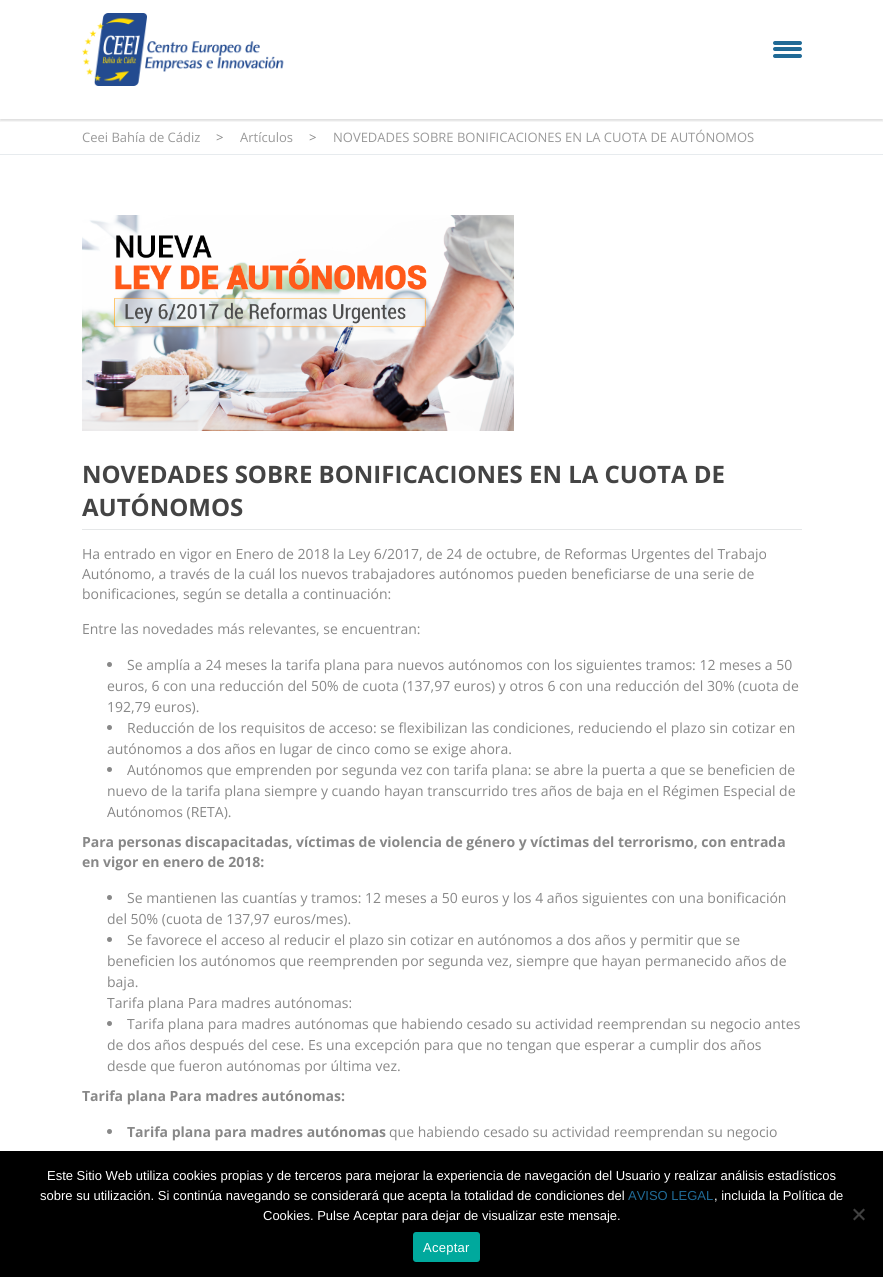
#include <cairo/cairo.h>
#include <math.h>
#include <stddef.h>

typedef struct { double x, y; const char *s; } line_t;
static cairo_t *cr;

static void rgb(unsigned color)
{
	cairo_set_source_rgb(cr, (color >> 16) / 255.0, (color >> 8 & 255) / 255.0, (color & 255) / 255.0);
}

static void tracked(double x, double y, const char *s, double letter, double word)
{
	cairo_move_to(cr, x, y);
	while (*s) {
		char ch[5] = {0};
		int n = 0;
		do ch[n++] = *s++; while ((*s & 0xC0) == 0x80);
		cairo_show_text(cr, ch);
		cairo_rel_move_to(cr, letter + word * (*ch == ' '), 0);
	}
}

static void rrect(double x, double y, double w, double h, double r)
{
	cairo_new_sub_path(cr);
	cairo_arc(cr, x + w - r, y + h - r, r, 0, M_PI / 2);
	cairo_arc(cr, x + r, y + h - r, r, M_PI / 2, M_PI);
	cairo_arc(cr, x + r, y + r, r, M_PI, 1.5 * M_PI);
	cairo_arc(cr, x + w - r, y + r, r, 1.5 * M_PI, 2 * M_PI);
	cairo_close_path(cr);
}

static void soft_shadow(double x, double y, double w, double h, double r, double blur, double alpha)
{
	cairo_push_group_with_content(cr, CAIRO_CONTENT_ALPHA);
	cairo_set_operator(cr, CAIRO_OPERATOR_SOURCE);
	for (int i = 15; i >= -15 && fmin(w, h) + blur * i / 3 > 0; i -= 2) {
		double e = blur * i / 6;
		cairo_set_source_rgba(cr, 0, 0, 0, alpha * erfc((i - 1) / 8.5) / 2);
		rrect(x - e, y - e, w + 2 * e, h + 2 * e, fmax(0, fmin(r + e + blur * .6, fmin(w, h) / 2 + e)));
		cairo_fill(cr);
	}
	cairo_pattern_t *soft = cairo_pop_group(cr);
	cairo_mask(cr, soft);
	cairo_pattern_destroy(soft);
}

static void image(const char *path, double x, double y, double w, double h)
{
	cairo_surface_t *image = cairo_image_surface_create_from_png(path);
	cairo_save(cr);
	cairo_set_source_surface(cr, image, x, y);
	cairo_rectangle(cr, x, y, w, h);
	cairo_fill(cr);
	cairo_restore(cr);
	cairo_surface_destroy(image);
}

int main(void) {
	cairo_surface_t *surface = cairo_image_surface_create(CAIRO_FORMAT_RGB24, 883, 1277);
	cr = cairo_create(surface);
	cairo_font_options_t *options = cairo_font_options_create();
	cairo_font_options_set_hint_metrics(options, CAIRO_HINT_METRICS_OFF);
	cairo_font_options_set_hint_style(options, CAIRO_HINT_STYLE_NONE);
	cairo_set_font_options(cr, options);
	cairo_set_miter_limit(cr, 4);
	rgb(0xffffff);
	cairo_paint(cr);
	cairo_save(cr);
	cairo_rectangle(cr, 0, 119, 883, 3);
	cairo_clip(cr);
	rgb(0x000000);
	soft_shadow(0, 2, 883, 119, 0, 1, 0.13);
	cairo_restore(cr);
	image("img/1.png", 82, 13, 202, 73);
	rgb(0x206a96);
	rrect(773, 41, 29, 4, 2);
	cairo_fill(cr);
	rrect(773, 47, 29, 4, 2);
	cairo_fill(cr);
	rrect(773, 54, 29, 4, 2);
	cairo_fill(cr);
	rgb(0xe7ebee);
	cairo_rectangle(cr, 0, 154, 883, 1);
	cairo_fill(cr);
	image("img/2.png", 82, 215, 432, 216);
	rgb(0xe5e7e8);
	cairo_rectangle(cr, 82, 529, 720, 1);
	cairo_fill(cr);
	rgb(0x888888);
	cairo_arc(cr, 109.5, 664.5, 2.5, 0, 2 * M_PI);
	cairo_fill(cr);
	cairo_arc(cr, 109.5, 727.5, 2.5, 0, 2 * M_PI);
	cairo_fill(cr);
	cairo_arc(cr, 109.5, 769.5, 2.5, 0, 2 * M_PI);
	cairo_fill(cr);
	cairo_arc(cr, 109.5, 897.5, 2.5, 0, 2 * M_PI);
	cairo_fill(cr);
	cairo_arc(cr, 109.5, 939.5, 2.5, 0, 2 * M_PI);
	cairo_fill(cr);
	cairo_arc(cr, 109.5, 1023.5, 2.5, 0, 2 * M_PI);
	cairo_fill(cr);
	cairo_arc(cr, 109.5, 1131.5, 2.5, 0, 2 * M_PI);
	cairo_fill(cr);
	rgb(0x000000);
	cairo_rectangle(cr, 0, 1151, 883, 126);
	cairo_fill(cr);
	rgb(0x404040);
	cairo_new_path(cr);
	cairo_move_to(cr, 863.5, 1208.5);
	cairo_line_to(cr, 865, 1210);
	cairo_line_to(cr, 854.5, 1220.5);
	cairo_line_to(cr, 853, 1219);
	cairo_close_path(cr);
	cairo_fill(cr);
	cairo_new_path(cr);
	cairo_move_to(cr, 853, 1210);
	cairo_line_to(cr, 854.5, 1208.5);
	cairo_line_to(cr, 865, 1219);
	cairo_line_to(cr, 863.5, 1220.5);
	cairo_close_path(cr);
	cairo_fill(cr);
	rgb(0x00a99d);
	rrect(413, 1232, 67, 30, 3);
	cairo_fill(cr);
	cairo_select_font_face(cr, "Open Sans", CAIRO_FONT_SLANT_NORMAL, CAIRO_FONT_WEIGHT_NORMAL);
	cairo_set_font_size(cr, 13);
	rgb(0x9a9a9a);
	cairo_move_to(cr, 82, 142);
	cairo_show_text(cr, "Ceei Bahía de Cádiz");
	rgb(0x888888);
	cairo_move_to(cr, 216, 142);
	cairo_show_text(cr, ">");
	rgb(0x9a9a9a);
	cairo_move_to(cr, 240, 142);
	cairo_show_text(cr, "Artículos");
	rgb(0x888888);
	cairo_move_to(cr, 309, 142);
	cairo_show_text(cr, ">");
	rgb(0x9a9a9a);
	cairo_move_to(cr, 333, 142);
	cairo_show_text(cr, "NOVEDADES SOBRE BONIFICACIONES EN LA CUOTA DE AUTÓNOMOS");
	cairo_select_font_face(cr, "Open Sans", CAIRO_FONT_SLANT_NORMAL, CAIRO_FONT_WEIGHT_BOLD);
	cairo_set_font_size(cr, 24);
	rgb(0x444444);
	cairo_move_to(cr, 82, 483);
	cairo_show_text(cr, "NOVEDADES SOBRE BONIFICACIONES EN LA CUOTA DE");
	cairo_move_to(cr, 82, 516);
	cairo_show_text(cr, "AUTÓNOMOS");
	cairo_select_font_face(cr, "Open Sans", CAIRO_FONT_SLANT_NORMAL, CAIRO_FONT_WEIGHT_NORMAL);
	cairo_set_font_size(cr, 14);
	rgb(0x888888);
	{
		static const line_t items[] = {
			{82, 559, "Ha entrado en vigor en Enero de 2018 la Ley 6/2017, de 24 de octubre, de Reformas Urgentes del Trabajo"},
			{82, 579, "Autónomo, a través de la cuál los nuevos trabajadores autónomos pueden beneficiarse de una serie de"},
			{82, 599, "bonificaciones, según se detalla a continuación:"},
			{82, 634, "Entre las novedades más relevantes, se encuentran:"},
			{127, 670, "Se amplía a 24 meses la tarifa plana para nuevos autónomos con los siguientes tramos: 12 meses a 50"},
			{107, 691, "euros, 6 con una reducción del 50% de cuota (137,97 euros) y otros 6 con una reducción del 30% (cuota de"},
			{107, 712, "192,79 euros)."},
			{127, 733, "Reducción de los requisitos de acceso: se flexibilizan las condiciones, reduciendo el plazo sin cotizar en"},
			{107, 754, "autónomos a dos años en lugar de cinco como se exige ahora."},
			{127, 775, "Autónomos que emprenden por segunda vez con tarifa plana: se abre la puerta a que se beneficien de"},
			{107, 796, "nuevo de la tarifa plana siempre y cuando hayan transcurrido tres años de baja en el Régimen Especial de"},
			{107, 817, "Autónomos (RETA)."},
		};
		for (size_t i = 0; i < sizeof items / sizeof *items; i++) {
			cairo_move_to(cr, items[i].x, items[i].y);
			cairo_show_text(cr, items[i].s);
		}
	}
	cairo_select_font_face(cr, "Open Sans", CAIRO_FONT_SLANT_NORMAL, CAIRO_FONT_WEIGHT_BOLD);
	cairo_move_to(cr, 82, 847);
	cairo_show_text(cr, "Para personas discapacitadas, víctimas de violencia de género y víctimas del terrorismo, con entrada");
	cairo_move_to(cr, 82, 867);
	cairo_show_text(cr, "en vigor en enero de 2018:");
	cairo_select_font_face(cr, "Open Sans", CAIRO_FONT_SLANT_NORMAL, CAIRO_FONT_WEIGHT_NORMAL);
	{
		static const line_t items[] = {
			{127, 903, "Se mantienen las cuantías y tramos: 12 meses a 50 euros y los 4 años siguientes con una bonificación"},
			{107, 924, "del 50% (cuota de 137,97 euros/mes)."},
			{127, 945, "Se favorece el acceso al reducir el plazo sin cotizar en autónomos a dos años y permitir que se"},
			{107, 966, "beneficien los autónomos que reemprenden por segunda vez, siempre que hayan permanecido años de"},
			{107, 987, "baja."},
			{107, 1008, "Tarifa plana Para madres autónomas:"},
			{127, 1029, "Tarifa plana para madres autónomas que habiendo cesado su actividad reemprendan su negocio antes"},
			{107, 1050, "de dos años después del cese. Es una excepción para que no tengan que esperar a cumplir dos años"},
			{107, 1071, "desde que fueron autónomas por última vez."},
		};
		for (size_t i = 0; i < sizeof items / sizeof *items; i++) {
			cairo_move_to(cr, items[i].x, items[i].y);
			cairo_show_text(cr, items[i].s);
		}
	}
	cairo_select_font_face(cr, "Open Sans", CAIRO_FONT_SLANT_NORMAL, CAIRO_FONT_WEIGHT_BOLD);
	cairo_move_to(cr, 82, 1101);
	cairo_show_text(cr, "Tarifa plana Para madres autónomas:");
	cairo_move_to(cr, 127, 1137);
	cairo_show_text(cr, "Tarifa plana para madres autónomas");
	cairo_select_font_face(cr, "Open Sans", CAIRO_FONT_SLANT_NORMAL, CAIRO_FONT_WEIGHT_NORMAL);
	cairo_move_to(cr, 389, 1137);
	cairo_show_text(cr, "que habiendo cesado su actividad reemprendan su negocio");
	cairo_select_font_face(cr, "Liberation Sans", CAIRO_FONT_SLANT_NORMAL, CAIRO_FONT_WEIGHT_NORMAL);
	cairo_set_font_size(cr, 13);
	rgb(0xffffff);
	cairo_move_to(cr, 47, 1180);
	cairo_show_text(cr, "Este Sitio Web utiliza cookies propias y de terceros para mejorar la experiencia de navegación del Usuario y realizar análisis estadísticos");
	cairo_move_to(cr, 40, 1200);
	cairo_show_text(cr, "sobre su utilización. Si continúa navegando se considerará que acepta la totalidad de condiciones del");
	rgb(0x206a96);
	cairo_move_to(cr, 628, 1200);
	cairo_show_text(cr, "AVISO LEGAL");
	rgb(0xffffff);
	cairo_move_to(cr, 714, 1200);
	cairo_show_text(cr, ", incluida la Política de");
	cairo_move_to(cr, 263, 1220);
	cairo_show_text(cr, "Cookies. Pulse Aceptar para dejar de visualizar este mensaje.");
	tracked(423, 1252, "Aceptar", 0.25, 0);
	cairo_surface_write_to_png(surface, "page.png");
	cairo_font_options_destroy(options);
	cairo_destroy(cr);
	cairo_surface_destroy(surface);
	return 0;
}
